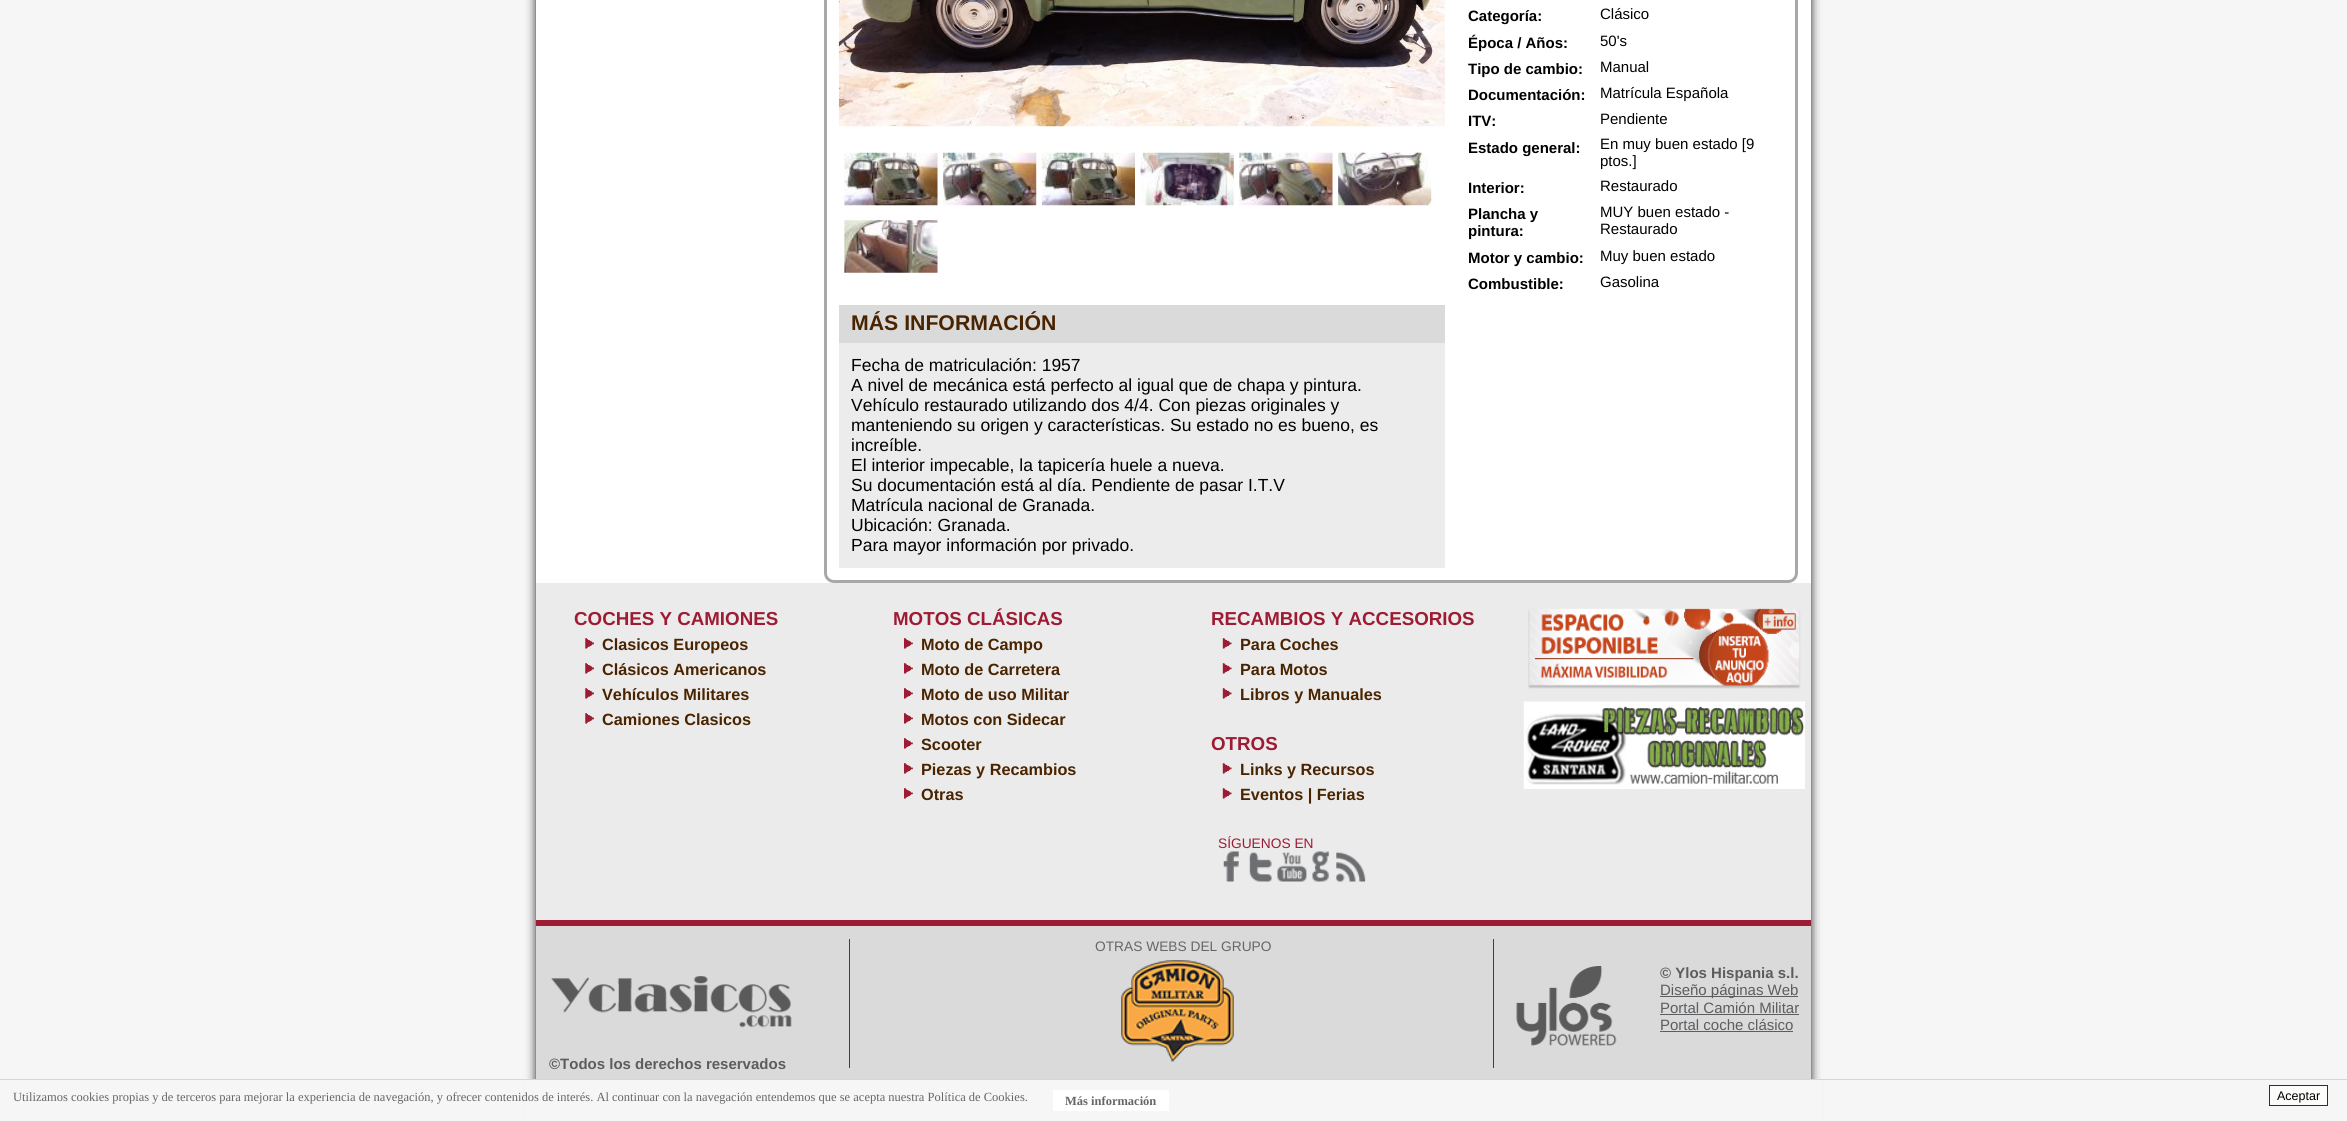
#include <cairo/cairo.h>
#include <math.h>
#include <stddef.h>

typedef struct { double x, y; const char *s; } line_t;
typedef struct { double x, y, w, h; unsigned color; } box_t;
static cairo_t *cr;

static void rgb(unsigned color)
{
	cairo_set_source_rgb(cr, (color >> 16) / 255.0, (color >> 8 & 255) / 255.0, (color & 255) / 255.0);
}

static void rrect(double x, double y, double w, double h, double r)
{
	cairo_new_sub_path(cr);
	cairo_arc(cr, x + w - r, y + h - r, r, 0, M_PI / 2);
	cairo_arc(cr, x + r, y + h - r, r, M_PI / 2, M_PI);
	cairo_arc(cr, x + r, y + r, r, M_PI, 1.5 * M_PI);
	cairo_arc(cr, x + w - r, y + r, r, 1.5 * M_PI, 2 * M_PI);
	cairo_close_path(cr);
}

static void soft_shadow(double x, double y, double w, double h, double r, double blur, double alpha)
{
	cairo_push_group_with_content(cr, CAIRO_CONTENT_ALPHA);
	cairo_set_operator(cr, CAIRO_OPERATOR_SOURCE);
	for (int i = 15; i >= -15 && fmin(w, h) + blur * i / 3 > 0; i -= 2) {
		double e = blur * i / 6;
		cairo_set_source_rgba(cr, 0, 0, 0, alpha * erfc((i - 1) / 8.5) / 2);
		rrect(x - e, y - e, w + 2 * e, h + 2 * e, fmax(0, fmin(r + e + blur * .6, fmin(w, h) / 2 + e)));
		cairo_fill(cr);
	}
	cairo_pattern_t *soft = cairo_pop_group(cr);
	cairo_mask(cr, soft);
	cairo_pattern_destroy(soft);
}

static void image(const char *path, double x, double y, double w, double h)
{
	cairo_surface_t *image = cairo_image_surface_create_from_png(path);
	cairo_save(cr);
	cairo_set_source_surface(cr, image, x, y);
	cairo_rectangle(cr, x, y, w, h);
	cairo_fill(cr);
	cairo_restore(cr);
	cairo_surface_destroy(image);
}

int main(void) {
	cairo_surface_t *surface = cairo_image_surface_create(CAIRO_FORMAT_RGB24, 2347, 1121);
	cr = cairo_create(surface);
	cairo_font_options_t *options = cairo_font_options_create();
	cairo_font_options_set_hint_metrics(options, CAIRO_HINT_METRICS_OFF);
	cairo_font_options_set_hint_style(options, CAIRO_HINT_STYLE_NONE);
	cairo_set_font_options(cr, options);
	cairo_set_miter_limit(cr, 4);
	rgb(0xf6f6f6);
	cairo_paint(cr);
	rgb(0x222222);
	soft_shadow(536, -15, 1275, 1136, 0, 5, 1);
	rgb(0xffffff);
	cairo_rectangle(cr, 536, 0, 1275, 583);
	cairo_fill(cr);
	rrect(825.5, -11.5, 971, 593, 8.5);
	rgb(0xa8a8a9);
	cairo_set_line_width(cr, 3);
	cairo_stroke(cr);
	image("img/1.png", 838, 0, 607, 127);
	image("img/2.png", 844, 152, 94, 54);
	image("img/3.png", 943, 152, 94, 54);
	image("img/4.png", 1041, 152, 94, 54);
	image("img/5.png", 1140, 152, 94, 54);
	image("img/6.png", 1239, 152, 94, 54);
	image("img/7.png", 1338, 152, 94, 54);
	image("img/8.png", 844, 220, 94, 53);
	{
		static const box_t items[] = {
			{839, 305, 606, 38, 0xdadada},
			{839, 343, 606, 225, 0xececed},
			{536, 583, 1275, 337, 0xebebeb},
		};
		for (size_t i = 0; i < sizeof items / sizeof *items; i++) {
			rgb(items[i].color);
			cairo_rectangle(cr, items[i].x, items[i].y, items[i].w, items[i].h);
			cairo_fill(cr);
		}
	}
	image("img/9.png", 585, 638, 9, 11);
	image("img/9.png", 585, 663, 9, 11);
	image("img/9.png", 585, 688, 9, 11);
	image("img/9.png", 585, 713, 9, 11);
	image("img/10.png", 904, 638, 9, 11);
	image("img/10.png", 904, 663, 9, 11);
	image("img/10.png", 904, 688, 9, 11);
	image("img/10.png", 904, 713, 9, 11);
	image("img/10.png", 904, 738, 9, 11);
	image("img/10.png", 904, 763, 9, 11);
	image("img/10.png", 904, 788, 9, 11);
	image("img/11.png", 1222, 638, 10, 11);
	image("img/11.png", 1222, 663, 10, 11);
	image("img/11.png", 1222, 688, 10, 11);
	image("img/11.png", 1222, 763, 10, 11);
	image("img/11.png", 1222, 788, 10, 11);
	image("img/12.png", 1223, 851, 16, 31);
	image("img/13.png", 1249, 852, 23, 30);
	image("img/14.png", 1277, 852, 30, 30);
	image("img/15.png", 1312, 851, 17, 31);
	image("img/16.png", 1336, 852, 30, 30);
	image("img/17.png", 1528, 608, 273, 81);
	image("img/18.png", 1523, 701, 282, 88);
	{
		static const box_t items[] = {
			{536, 926, 1275, 153, 0xdadada},
			{536, 920, 1275, 6, 0x9e1b34},
			{1493, 939, 1, 129, 0x683215},
			{849, 939, 1, 129, 0x683215},
		};
		for (size_t i = 0; i < sizeof items / sizeof *items; i++) {
			rgb(items[i].color);
			cairo_rectangle(cr, items[i].x, items[i].y, items[i].w, items[i].h);
			cairo_fill(cr);
		}
	}
	image("img/19.png", 1121, 960, 113, 102);
	image("img/20.png", 1516, 966, 101, 80);
	{
		static const box_t items[] = {
			{1660, 996, 138, 1, 0x5b5d5f},
			{1660, 1014, 139, 1, 0x5b5d5f},
			{1660, 1031, 133, 1, 0x5b5d5f},
		};
		for (size_t i = 0; i < sizeof items / sizeof *items; i++) {
			rgb(items[i].color);
			cairo_rectangle(cr, items[i].x, items[i].y, items[i].w, items[i].h);
			cairo_fill(cr);
		}
	}
	image("img/21.png", 551, 976, 241, 52);
	{
		static const box_t items[] = {
			{525, 1080, 1297, 41, 0xf6f6f6},
			{0, 1079, 2347, 1, 0xd6d6d6},
			{1053, 1090, 116, 21, 0xffffff},
		};
		for (size_t i = 0; i < sizeof items / sizeof *items; i++) {
			rgb(items[i].color);
			cairo_rectangle(cr, items[i].x, items[i].y, items[i].w, items[i].h);
			cairo_fill(cr);
		}
	}
	rgb(0xfcfcfb);
	cairo_rectangle(cr, 2269.5, 1085.5, 58, 20);
	cairo_fill_preserve(cr);
	rgb(0x003c74);
	cairo_set_line_width(cr, 1);
	cairo_stroke(cr);
	cairo_select_font_face(cr, "Liberation Sans", CAIRO_FONT_SLANT_NORMAL, CAIRO_FONT_WEIGHT_BOLD);
	cairo_set_font_size(cr, 15);
	rgb(0x000000);
	cairo_move_to(cr, 1468, 21);
	cairo_show_text(cr, "Categoría:");
	cairo_select_font_face(cr, "Liberation Sans", CAIRO_FONT_SLANT_NORMAL, CAIRO_FONT_WEIGHT_NORMAL);
	cairo_move_to(cr, 1600, 19);
	cairo_show_text(cr, "Clásico");
	cairo_select_font_face(cr, "Liberation Sans", CAIRO_FONT_SLANT_NORMAL, CAIRO_FONT_WEIGHT_BOLD);
	cairo_move_to(cr, 1468, 48);
	cairo_show_text(cr, "Época / Años:");
	cairo_select_font_face(cr, "Liberation Sans", CAIRO_FONT_SLANT_NORMAL, CAIRO_FONT_WEIGHT_NORMAL);
	cairo_move_to(cr, 1600, 46);
	cairo_show_text(cr, "50's");
	cairo_select_font_face(cr, "Liberation Sans", CAIRO_FONT_SLANT_NORMAL, CAIRO_FONT_WEIGHT_BOLD);
	cairo_move_to(cr, 1468, 74);
	cairo_show_text(cr, "Tipo de cambio:");
	cairo_select_font_face(cr, "Liberation Sans", CAIRO_FONT_SLANT_NORMAL, CAIRO_FONT_WEIGHT_NORMAL);
	cairo_move_to(cr, 1600, 72);
	cairo_show_text(cr, "Manual");
	cairo_select_font_face(cr, "Liberation Sans", CAIRO_FONT_SLANT_NORMAL, CAIRO_FONT_WEIGHT_BOLD);
	cairo_move_to(cr, 1468, 100);
	cairo_show_text(cr, "Documentación:");
	cairo_select_font_face(cr, "Liberation Sans", CAIRO_FONT_SLANT_NORMAL, CAIRO_FONT_WEIGHT_NORMAL);
	cairo_move_to(cr, 1600, 98);
	cairo_show_text(cr, "Matrícula Española");
	cairo_select_font_face(cr, "Liberation Sans", CAIRO_FONT_SLANT_NORMAL, CAIRO_FONT_WEIGHT_BOLD);
	cairo_move_to(cr, 1468, 126);
	cairo_show_text(cr, "ITV:");
	cairo_select_font_face(cr, "Liberation Sans", CAIRO_FONT_SLANT_NORMAL, CAIRO_FONT_WEIGHT_NORMAL);
	cairo_move_to(cr, 1600, 124);
	cairo_show_text(cr, "Pendiente");
	cairo_select_font_face(cr, "Liberation Sans", CAIRO_FONT_SLANT_NORMAL, CAIRO_FONT_WEIGHT_BOLD);
	cairo_move_to(cr, 1468, 153);
	cairo_show_text(cr, "Estado general:");
	cairo_select_font_face(cr, "Liberation Sans", CAIRO_FONT_SLANT_NORMAL, CAIRO_FONT_WEIGHT_NORMAL);
	cairo_move_to(cr, 1600, 149);
	cairo_show_text(cr, "En muy buen estado [9");
	cairo_move_to(cr, 1600, 166);
	cairo_show_text(cr, "ptos.]");
	cairo_select_font_face(cr, "Liberation Sans", CAIRO_FONT_SLANT_NORMAL, CAIRO_FONT_WEIGHT_BOLD);
	cairo_move_to(cr, 1468, 193);
	cairo_show_text(cr, "Interior:");
	cairo_select_font_face(cr, "Liberation Sans", CAIRO_FONT_SLANT_NORMAL, CAIRO_FONT_WEIGHT_NORMAL);
	cairo_move_to(cr, 1600, 191);
	cairo_show_text(cr, "Restaurado");
	cairo_select_font_face(cr, "Liberation Sans", CAIRO_FONT_SLANT_NORMAL, CAIRO_FONT_WEIGHT_BOLD);
	cairo_move_to(cr, 1468, 219);
	cairo_show_text(cr, "Plancha y");
	cairo_move_to(cr, 1468, 236);
	cairo_show_text(cr, "pintura:");
	cairo_select_font_face(cr, "Liberation Sans", CAIRO_FONT_SLANT_NORMAL, CAIRO_FONT_WEIGHT_NORMAL);
	cairo_move_to(cr, 1600, 217);
	cairo_show_text(cr, "MUY buen estado -");
	cairo_move_to(cr, 1600, 234);
	cairo_show_text(cr, "Restaurado");
	cairo_select_font_face(cr, "Liberation Sans", CAIRO_FONT_SLANT_NORMAL, CAIRO_FONT_WEIGHT_BOLD);
	cairo_move_to(cr, 1468, 263);
	cairo_show_text(cr, "Motor y cambio:");
	cairo_select_font_face(cr, "Liberation Sans", CAIRO_FONT_SLANT_NORMAL, CAIRO_FONT_WEIGHT_NORMAL);
	cairo_move_to(cr, 1600, 261);
	cairo_show_text(cr, "Muy buen estado");
	cairo_select_font_face(cr, "Liberation Sans", CAIRO_FONT_SLANT_NORMAL, CAIRO_FONT_WEIGHT_BOLD);
	cairo_move_to(cr, 1468, 289);
	cairo_show_text(cr, "Combustible:");
	cairo_select_font_face(cr, "Liberation Sans", CAIRO_FONT_SLANT_NORMAL, CAIRO_FONT_WEIGHT_NORMAL);
	cairo_move_to(cr, 1600, 287);
	cairo_show_text(cr, "Gasolina");
	cairo_select_font_face(cr, "Liberation Sans", CAIRO_FONT_SLANT_NORMAL, CAIRO_FONT_WEIGHT_BOLD);
	cairo_set_font_size(cr, 21.25);
	rgb(0x4a2400);
	cairo_move_to(cr, 851, 330);
	cairo_show_text(cr, "MÁS INFORMACIÓN");
	cairo_select_font_face(cr, "Liberation Sans", CAIRO_FONT_SLANT_NORMAL, CAIRO_FONT_WEIGHT_NORMAL);
	cairo_set_font_size(cr, 17.5);
	rgb(0x000000);
	{
		static const line_t items[] = {
			{851, 371, "Fecha de matriculación: 1957"},
			{851, 391, "A nivel de mecánica está perfecto al igual que de chapa y pintura."},
			{851, 411, "Vehículo restaurado utilizando dos 4/4. Con piezas originales y"},
			{851, 431, "manteniendo su origen y características. Su estado no es bueno, es"},
			{851, 451, "increíble."},
			{851, 471, "El interior impecable, la tapicería huele a nueva."},
			{851, 491, "Su documentación está al día. Pendiente de pasar I.T.V"},
			{851, 511, "Matrícula nacional de Granada."},
			{851, 531, "Ubicación: Granada."},
			{851, 551, "Para mayor información por privado."},
		};
		for (size_t i = 0; i < sizeof items / sizeof *items; i++) {
			cairo_move_to(cr, items[i].x, items[i].y);
			cairo_show_text(cr, items[i].s);
		}
	}
	cairo_select_font_face(cr, "Liberation Sans", CAIRO_FONT_SLANT_NORMAL, CAIRO_FONT_WEIGHT_BOLD);
	cairo_set_font_size(cr, 18.75);
	rgb(0x9e1b34);
	cairo_move_to(cr, 574, 625);
	cairo_show_text(cr, "COCHES Y CAMIONES");
	cairo_set_font_size(cr, 16.25);
	rgb(0x4a2400);
	{
		static const line_t items[] = {
			{602, 650, "Clasicos Europeos"},
			{602, 675, "Clásicos Americanos"},
			{602, 700, "Vehículos Militares"},
			{602, 725, "Camiones Clasicos"},
		};
		for (size_t i = 0; i < sizeof items / sizeof *items; i++) {
			cairo_move_to(cr, items[i].x, items[i].y);
			cairo_show_text(cr, items[i].s);
		}
	}
	cairo_set_font_size(cr, 18.75);
	rgb(0x9e1b34);
	cairo_move_to(cr, 893, 625);
	cairo_show_text(cr, "MOTOS CLÁSICAS");
	cairo_set_font_size(cr, 16.25);
	rgb(0x4a2400);
	{
		static const line_t items[] = {
			{921, 650, "Moto de Campo"},
			{921, 675, "Moto de Carretera"},
			{921, 700, "Moto de uso Militar"},
			{921, 725, "Motos con Sidecar"},
			{921, 750, "Scooter"},
			{921, 775, "Piezas y Recambios"},
			{921, 800, "Otras"},
		};
		for (size_t i = 0; i < sizeof items / sizeof *items; i++) {
			cairo_move_to(cr, items[i].x, items[i].y);
			cairo_show_text(cr, items[i].s);
		}
	}
	cairo_set_font_size(cr, 18.75);
	rgb(0x9e1b34);
	cairo_move_to(cr, 1211, 625);
	cairo_show_text(cr, "RECAMBIOS Y ACCESORIOS");
	cairo_set_font_size(cr, 16.25);
	rgb(0x4a2400);
	{
		static const line_t items[] = {
			{1240, 650, "Para Coches"},
			{1240, 675, "Para Motos"},
			{1240, 700, "Libros y Manuales"},
		};
		for (size_t i = 0; i < sizeof items / sizeof *items; i++) {
			cairo_move_to(cr, items[i].x, items[i].y);
			cairo_show_text(cr, items[i].s);
		}
	}
	cairo_set_font_size(cr, 18.75);
	rgb(0x9e1b34);
	cairo_move_to(cr, 1211, 750);
	cairo_show_text(cr, "OTROS");
	cairo_set_font_size(cr, 16.25);
	rgb(0x4a2400);
	cairo_move_to(cr, 1240, 775);
	cairo_show_text(cr, "Links y Recursos");
	cairo_move_to(cr, 1240, 800);
	cairo_show_text(cr, "Eventos | Ferias");
	cairo_select_font_face(cr, "Liberation Sans", CAIRO_FONT_SLANT_NORMAL, CAIRO_FONT_WEIGHT_NORMAL);
	cairo_set_font_size(cr, 13.75);
	rgb(0x9e1b34);
	cairo_move_to(cr, 1218, 848);
	cairo_show_text(cr, "SÍGUENOS EN");
	rgb(0x666666);
	cairo_move_to(cr, 1095, 951);
	cairo_show_text(cr, "OTRAS WEBS DEL GRUPO");
	cairo_select_font_face(cr, "Liberation Sans", CAIRO_FONT_SLANT_NORMAL, CAIRO_FONT_WEIGHT_BOLD);
	cairo_set_font_size(cr, 15);
	rgb(0x5b5d5f);
	cairo_move_to(cr, 1660, 978);
	cairo_show_text(cr, "© Ylos Hispania s.l.");
	cairo_select_font_face(cr, "Liberation Sans", CAIRO_FONT_SLANT_NORMAL, CAIRO_FONT_WEIGHT_NORMAL);
	{
		static const line_t items[] = {
			{1660, 995, "Diseño páginas Web"},
			{1660, 1013, "Portal Camión Militar"},
			{1660, 1030, "Portal coche clásico"},
		};
		for (size_t i = 0; i < sizeof items / sizeof *items; i++) {
			cairo_move_to(cr, items[i].x, items[i].y);
			cairo_show_text(cr, items[i].s);
		}
	}
	cairo_select_font_face(cr, "Liberation Sans", CAIRO_FONT_SLANT_NORMAL, CAIRO_FONT_WEIGHT_BOLD);
	cairo_move_to(cr, 549, 1069);
	cairo_show_text(cr, "©Todos los derechos reservados");
	cairo_select_font_face(cr, "Liberation Serif", CAIRO_FONT_SLANT_NORMAL, CAIRO_FONT_WEIGHT_NORMAL);
	cairo_set_font_size(cr, 12.5);
	rgb(0x666666);
	cairo_move_to(cr, 13, 1101);
	cairo_show_text(cr, "Utilizamos cookies propias y de terceros para mejorar la experiencia de navegación, y ofrecer contenidos de interés. Al continuar con la navegación entendemos que se acepta nuestra Política de Cookies.");
	cairo_select_font_face(cr, "Liberation Serif", CAIRO_FONT_SLANT_NORMAL, CAIRO_FONT_WEIGHT_BOLD);
	cairo_move_to(cr, 1065, 1105);
	cairo_show_text(cr, "Más información");
	cairo_select_font_face(cr, "Liberation Sans", CAIRO_FONT_SLANT_NORMAL, CAIRO_FONT_WEIGHT_NORMAL);
	rgb(0x000000);
	cairo_move_to(cr, 2277, 1100);
	cairo_show_text(cr, "Aceptar");
	cairo_surface_write_to_png(surface, "page.png");
	cairo_font_options_destroy(options);
	cairo_destroy(cr);
	cairo_surface_destroy(surface);
	return 0;
}
